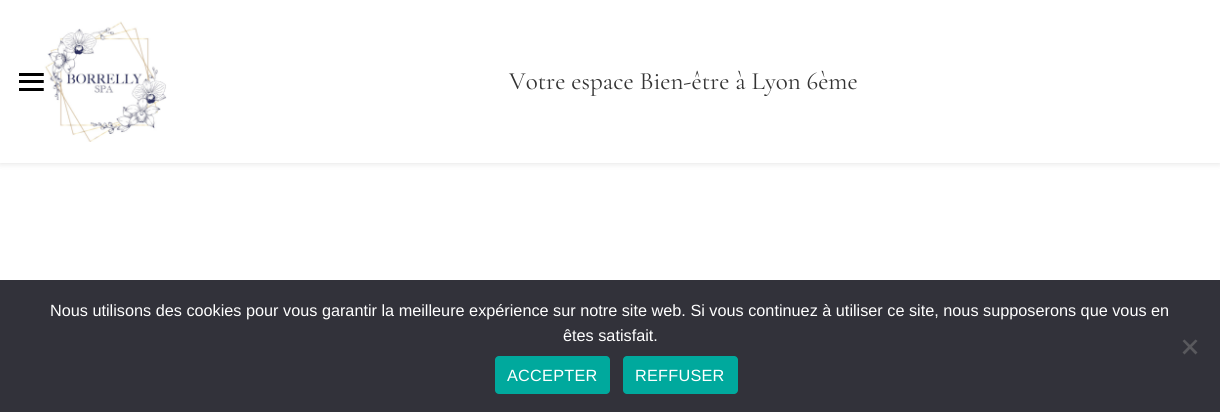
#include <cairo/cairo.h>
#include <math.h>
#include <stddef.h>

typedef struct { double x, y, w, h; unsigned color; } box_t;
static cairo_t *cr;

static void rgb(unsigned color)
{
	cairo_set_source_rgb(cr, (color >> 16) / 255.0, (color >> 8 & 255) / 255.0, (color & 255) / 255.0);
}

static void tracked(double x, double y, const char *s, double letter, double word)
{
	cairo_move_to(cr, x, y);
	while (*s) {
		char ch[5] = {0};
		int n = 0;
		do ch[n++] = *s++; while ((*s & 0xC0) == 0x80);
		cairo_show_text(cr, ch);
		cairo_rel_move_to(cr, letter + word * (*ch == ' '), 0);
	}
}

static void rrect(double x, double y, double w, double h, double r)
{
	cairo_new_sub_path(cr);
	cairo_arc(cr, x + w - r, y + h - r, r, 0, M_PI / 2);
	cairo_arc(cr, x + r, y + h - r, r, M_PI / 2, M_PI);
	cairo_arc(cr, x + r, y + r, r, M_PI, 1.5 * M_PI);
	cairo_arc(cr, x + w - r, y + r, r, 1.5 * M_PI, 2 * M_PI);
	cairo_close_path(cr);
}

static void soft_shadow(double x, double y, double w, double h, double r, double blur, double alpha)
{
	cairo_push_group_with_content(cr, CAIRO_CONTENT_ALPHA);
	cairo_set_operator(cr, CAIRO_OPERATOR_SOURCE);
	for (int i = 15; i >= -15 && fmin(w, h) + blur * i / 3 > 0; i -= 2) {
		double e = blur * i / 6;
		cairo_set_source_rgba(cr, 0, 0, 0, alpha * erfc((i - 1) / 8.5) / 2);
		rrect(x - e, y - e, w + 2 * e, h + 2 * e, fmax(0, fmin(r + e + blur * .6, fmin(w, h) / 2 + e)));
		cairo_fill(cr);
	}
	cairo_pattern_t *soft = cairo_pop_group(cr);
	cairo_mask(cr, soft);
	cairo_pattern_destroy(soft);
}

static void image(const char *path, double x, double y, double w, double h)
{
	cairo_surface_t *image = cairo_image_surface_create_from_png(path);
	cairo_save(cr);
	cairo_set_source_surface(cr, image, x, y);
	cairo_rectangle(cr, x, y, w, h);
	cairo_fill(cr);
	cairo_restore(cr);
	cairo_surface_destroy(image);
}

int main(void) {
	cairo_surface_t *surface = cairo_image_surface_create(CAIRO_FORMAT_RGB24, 1220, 412);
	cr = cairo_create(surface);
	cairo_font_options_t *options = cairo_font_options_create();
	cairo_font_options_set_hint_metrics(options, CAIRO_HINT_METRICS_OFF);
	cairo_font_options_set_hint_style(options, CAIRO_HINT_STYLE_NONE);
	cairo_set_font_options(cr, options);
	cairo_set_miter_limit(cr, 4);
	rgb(0xffffff);
	cairo_paint(cr);
	rgb(0x000000);
	soft_shadow(0, 1, 1220, 163, 0, 3, 0.1);
	{
		static const box_t items[] = {
			{0, 0, 1220, 163, 0xffffff},
			{19, 73, 25, 3, 0x000000},
			{19, 80, 25, 3, 0x000000},
			{19, 88, 25, 3, 0x000000},
		};
		for (size_t i = 0; i < sizeof items / sizeof *items; i++) {
			rgb(items[i].color);
			cairo_rectangle(cr, items[i].x, items[i].y, items[i].w, items[i].h);
			cairo_fill(cr);
		}
	}
	image("img/1.png", 43, 21, 124, 121);
	rgb(0x32323a);
	cairo_rectangle(cr, 0, 280, 1220, 132);
	cairo_fill(cr);
	rgb(0x59595d);
	cairo_new_path(cr);
	cairo_move_to(cr, 1195.5, 339.5);
	cairo_line_to(cr, 1197.5, 341);
	cairo_line_to(cr, 1184.5, 354.5);
	cairo_line_to(cr, 1182.5, 352.5);
	cairo_close_path(cr);
	cairo_fill(cr);
	cairo_new_path(cr);
	cairo_move_to(cr, 1182.5, 341);
	cairo_line_to(cr, 1184.5, 339.5);
	cairo_line_to(cr, 1197.5, 352.5);
	cairo_line_to(cr, 1195.5, 354.5);
	cairo_close_path(cr);
	cairo_fill(cr);
	rgb(0x00a99d);
	rrect(495, 356, 115, 38, 4);
	cairo_fill(cr);
	rrect(623, 356, 115, 38, 4);
	cairo_fill(cr);
	cairo_select_font_face(cr, "Cormorant Garamond", CAIRO_FONT_SLANT_NORMAL, CAIRO_FONT_WEIGHT_NORMAL);
	cairo_set_font_size(cr, 25);
	rgb(0x333333);
	cairo_move_to(cr, 509, 89);
	cairo_show_text(cr, "Votre espace Bien-être à Lyon 6ème");
	cairo_select_font_face(cr, "Liberation Sans", CAIRO_FONT_SLANT_NORMAL, CAIRO_FONT_WEIGHT_NORMAL);
	cairo_set_font_size(cr, 16.25);
	rgb(0xffffff);
	cairo_move_to(cr, 50, 316);
	cairo_show_text(cr, "Nous utilisons des cookies pour vous garantir la meilleure expérience sur notre site web. Si vous continuez à utiliser ce site, nous supposerons que vous en");
	cairo_move_to(cr, 563, 341);
	cairo_show_text(cr, "êtes satisfait.");
	tracked(507, 381, "ACCEPTER", 0.25, 0);
	tracked(635, 381, "REFFUSER", 0.25, 0);
	cairo_surface_write_to_png(surface, "page.png");
	cairo_font_options_destroy(options);
	cairo_destroy(cr);
	cairo_surface_destroy(surface);
	return 0;
}
